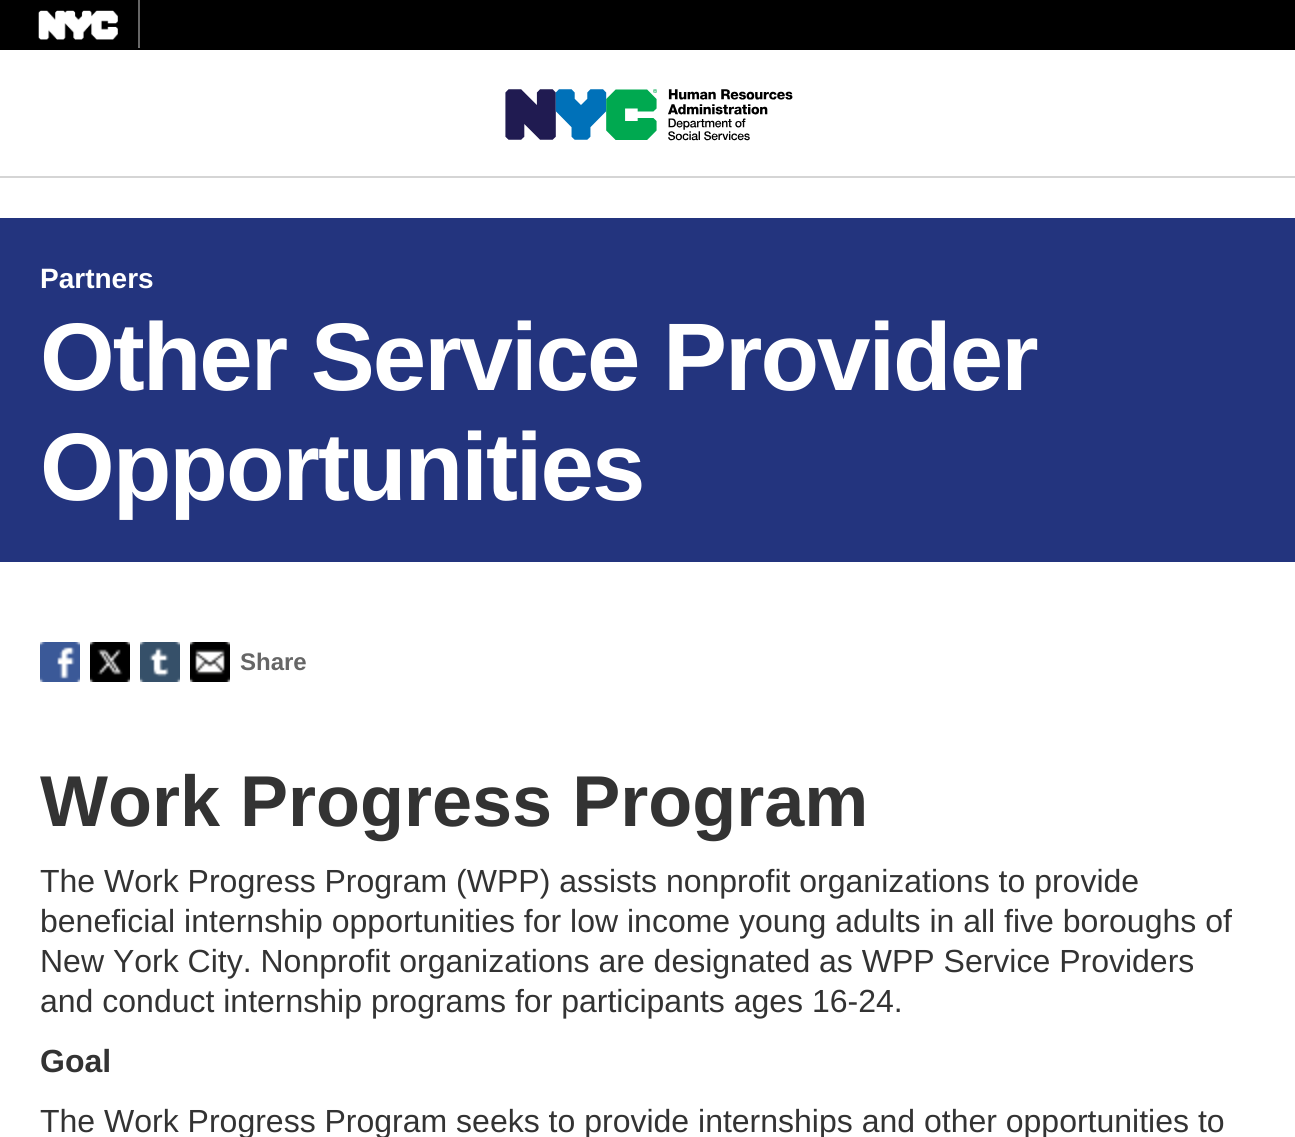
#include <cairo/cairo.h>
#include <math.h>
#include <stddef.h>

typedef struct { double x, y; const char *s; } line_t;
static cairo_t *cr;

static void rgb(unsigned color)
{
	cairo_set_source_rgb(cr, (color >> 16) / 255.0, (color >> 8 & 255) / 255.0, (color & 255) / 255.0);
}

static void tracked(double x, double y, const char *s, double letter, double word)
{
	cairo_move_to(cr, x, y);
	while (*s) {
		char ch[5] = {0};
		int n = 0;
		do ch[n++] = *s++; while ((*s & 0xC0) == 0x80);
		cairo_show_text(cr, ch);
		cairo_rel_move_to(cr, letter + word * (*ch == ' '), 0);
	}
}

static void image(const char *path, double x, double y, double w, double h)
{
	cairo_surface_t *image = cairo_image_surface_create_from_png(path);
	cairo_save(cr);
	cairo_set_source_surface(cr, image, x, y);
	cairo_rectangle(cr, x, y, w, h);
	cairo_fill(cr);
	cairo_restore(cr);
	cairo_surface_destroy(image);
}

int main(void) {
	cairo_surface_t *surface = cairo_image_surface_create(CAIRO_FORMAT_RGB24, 1295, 1137);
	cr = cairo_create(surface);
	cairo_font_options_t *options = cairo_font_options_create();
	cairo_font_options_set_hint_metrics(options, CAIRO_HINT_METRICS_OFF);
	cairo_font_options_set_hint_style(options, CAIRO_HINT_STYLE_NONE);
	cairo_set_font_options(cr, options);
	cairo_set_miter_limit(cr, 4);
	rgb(0xffffff);
	cairo_paint(cr);
	rgb(0x000000);
	cairo_rectangle(cr, 0, 0, 1295, 50);
	cairo_fill(cr);
	image("img/1.png", 38, 10, 80, 30);
	image("img/2.png", 138, 0, 2, 48);
	rgb(0xd5d5d5);
	cairo_rectangle(cr, 0, 176, 1295, 2);
	cairo_fill(cr);
	image("img/3.png", 505, 89, 288, 52);
	rgb(0x23347e);
	cairo_rectangle(cr, 0, 218, 1295, 344);
	cairo_fill(cr);
	image("img/4.png", 40, 642, 40, 40);
	image("img/5.png", 90, 642, 40, 40);
	image("img/6.png", 140, 642, 40, 40);
	image("img/7.png", 190, 642, 40, 40);
	cairo_select_font_face(cr, "Liberation Sans", CAIRO_FONT_SLANT_NORMAL, CAIRO_FONT_WEIGHT_BOLD);
	cairo_set_font_size(cr, 28);
	rgb(0xffffff);
	cairo_move_to(cr, 40, 288);
	cairo_show_text(cr, "Partners");
	cairo_set_font_size(cr, 96);
	tracked(40, 390, "Other Service Provider", -2, 0);
	tracked(40, 500, "Opportunities", -2, 0);
	cairo_set_font_size(cr, 24);
	rgb(0x666666);
	cairo_move_to(cr, 240, 670);
	cairo_show_text(cr, "Share");
	cairo_set_font_size(cr, 72);
	rgb(0x333333);
	cairo_move_to(cr, 40, 826);
	cairo_show_text(cr, "Work Progress Program");
	cairo_select_font_face(cr, "Liberation Sans", CAIRO_FONT_SLANT_NORMAL, CAIRO_FONT_WEIGHT_NORMAL);
	cairo_set_font_size(cr, 32);
	{
		static const line_t items[] = {
			{40, 892, "The Work Progress Program (WPP) assists nonprofit organizations to provide"},
			{40, 932, "beneficial internship opportunities for low income young adults in all five boroughs of"},
			{40, 972, "New York City. Nonprofit organizations are designated as WPP Service Providers"},
			{40, 1012, "and conduct internship programs for participants ages 16-24."},
		};
		for (size_t i = 0; i < sizeof items / sizeof *items; i++) {
			cairo_move_to(cr, items[i].x, items[i].y);
			cairo_show_text(cr, items[i].s);
		}
	}
	cairo_select_font_face(cr, "Liberation Sans", CAIRO_FONT_SLANT_NORMAL, CAIRO_FONT_WEIGHT_BOLD);
	cairo_move_to(cr, 40, 1072);
	cairo_show_text(cr, "Goal");
	cairo_select_font_face(cr, "Liberation Sans", CAIRO_FONT_SLANT_NORMAL, CAIRO_FONT_WEIGHT_NORMAL);
	cairo_move_to(cr, 40, 1132);
	cairo_show_text(cr, "The Work Progress Program seeks to provide internships and other opportunities to");
	cairo_surface_write_to_png(surface, "page.png");
	cairo_font_options_destroy(options);
	cairo_destroy(cr);
	cairo_surface_destroy(surface);
	return 0;
}
